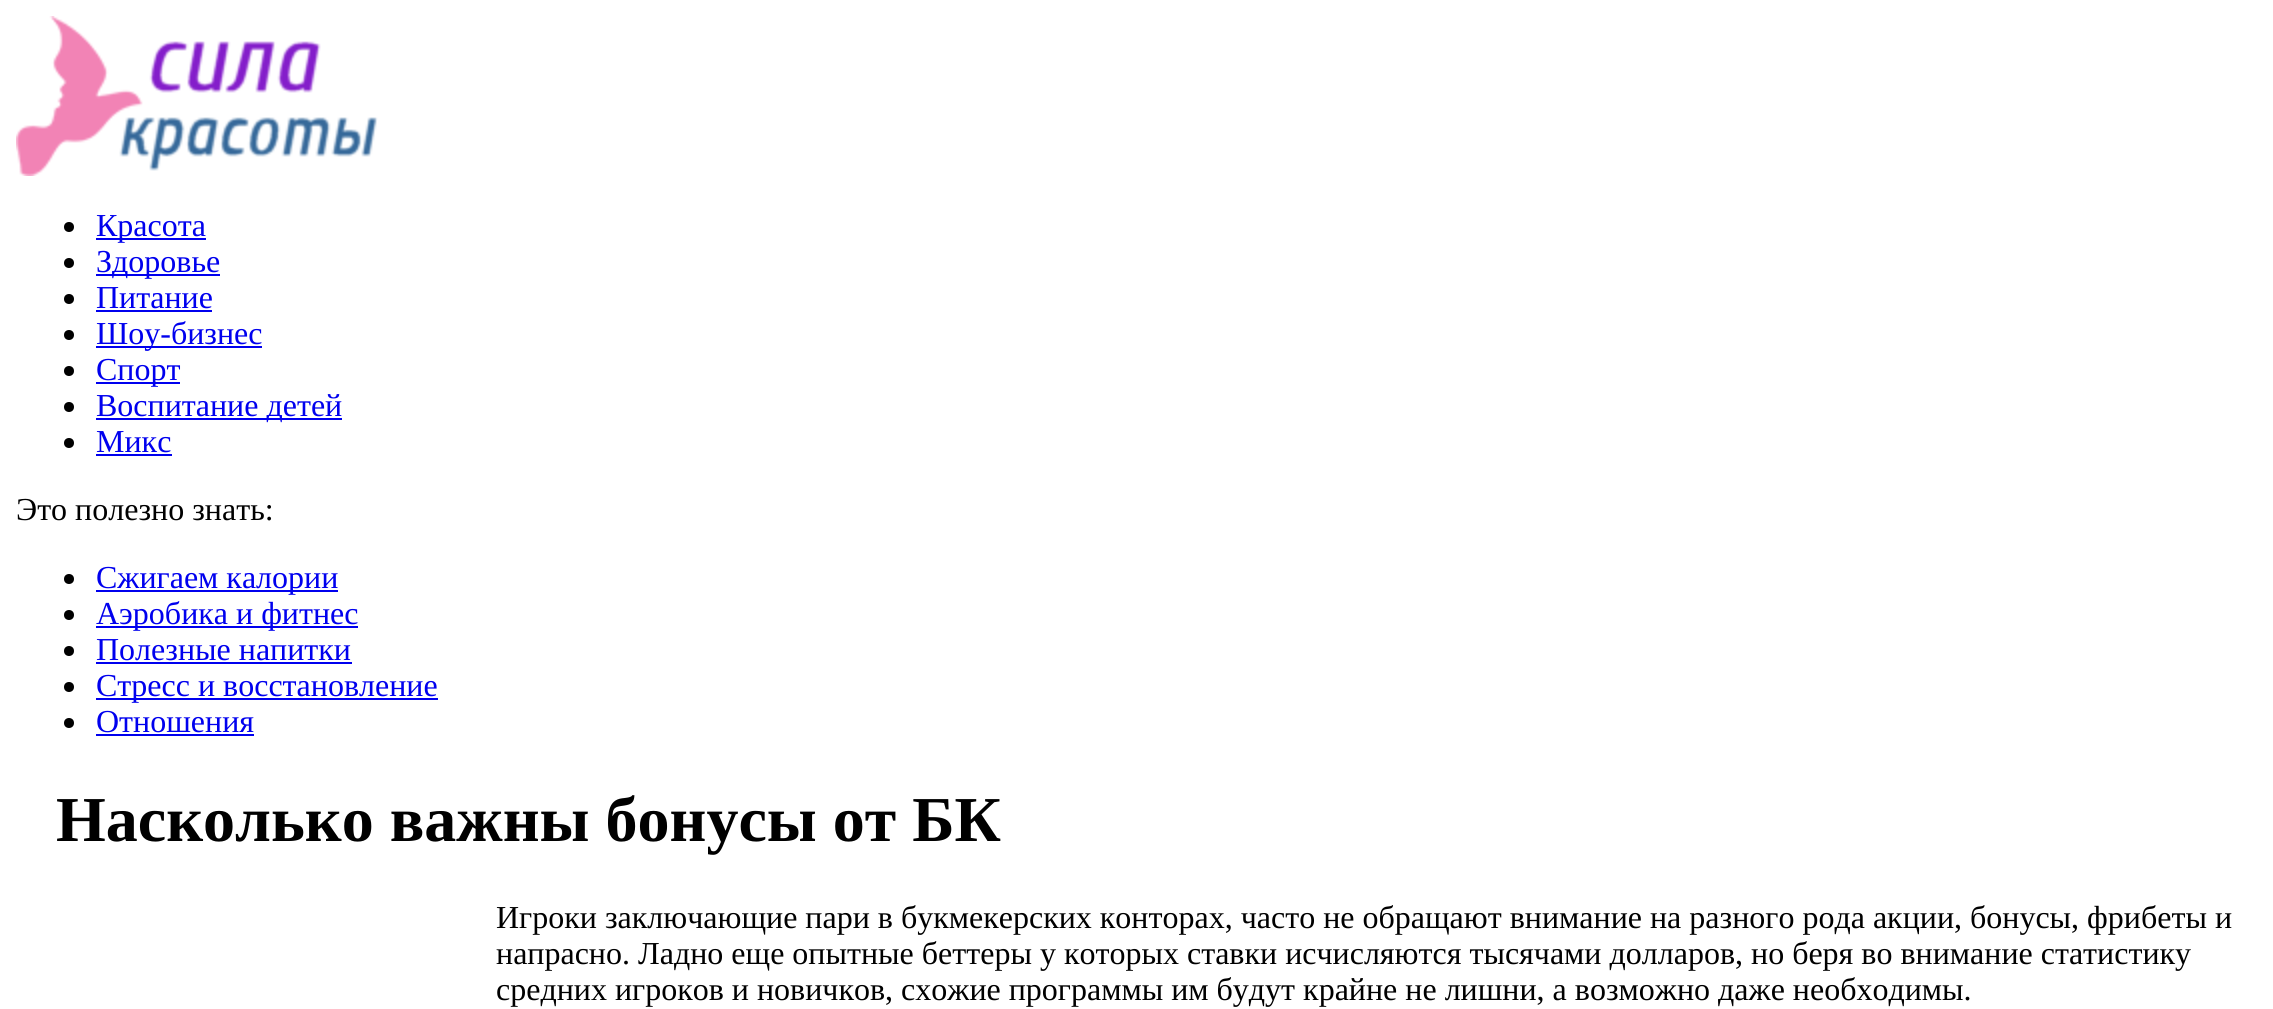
#include <cairo/cairo.h>
#include <math.h>
#include <stddef.h>

typedef struct { double x, y; const char *s; } line_t;
static cairo_t *cr;

static void rgb(unsigned color)
{
	cairo_set_source_rgb(cr, (color >> 16) / 255.0, (color >> 8 & 255) / 255.0, (color & 255) / 255.0);
}

static void image(const char *path, double x, double y, double w, double h)
{
	cairo_surface_t *image = cairo_image_surface_create_from_png(path);
	cairo_save(cr);
	cairo_set_source_surface(cr, image, x, y);
	cairo_rectangle(cr, x, y, w, h);
	cairo_fill(cr);
	cairo_restore(cr);
	cairo_surface_destroy(image);
}

int main(void) {
	cairo_surface_t *surface = cairo_image_surface_create(CAIRO_FORMAT_RGB24, 2273, 1009);
	cr = cairo_create(surface);
	cairo_font_options_t *options = cairo_font_options_create();
	cairo_font_options_set_hint_metrics(options, CAIRO_HINT_METRICS_OFF);
	cairo_font_options_set_hint_style(options, CAIRO_HINT_STYLE_NONE);
	cairo_set_font_options(cr, options);
	cairo_set_miter_limit(cr, 4);
	rgb(0xffffff);
	cairo_paint(cr);
	image("img/1.png", 16, 16, 362, 160);
	rgb(0x000000);
	cairo_arc(cr, 69, 227, 5, 0, 2 * M_PI);
	cairo_fill(cr);
	rgb(0x0000ee);
	cairo_rectangle(cr, 96, 238, 110, 2);
	cairo_fill(cr);
	rgb(0x000000);
	cairo_arc(cr, 69, 263, 5, 0, 2 * M_PI);
	cairo_fill(cr);
	rgb(0x0000ee);
	cairo_rectangle(cr, 96, 274, 124, 2);
	cairo_fill(cr);
	rgb(0x000000);
	cairo_arc(cr, 69, 299, 5, 0, 2 * M_PI);
	cairo_fill(cr);
	rgb(0x0000ee);
	cairo_rectangle(cr, 96, 310, 116, 2);
	cairo_fill(cr);
	rgb(0x000000);
	cairo_arc(cr, 69, 335, 5, 0, 2 * M_PI);
	cairo_fill(cr);
	rgb(0x0000ee);
	cairo_rectangle(cr, 96, 346, 166, 2);
	cairo_fill(cr);
	rgb(0x000000);
	cairo_arc(cr, 69, 371, 5, 0, 2 * M_PI);
	cairo_fill(cr);
	rgb(0x0000ee);
	cairo_rectangle(cr, 96, 382, 84, 2);
	cairo_fill(cr);
	rgb(0x000000);
	cairo_arc(cr, 69, 407, 5, 0, 2 * M_PI);
	cairo_fill(cr);
	rgb(0x0000ee);
	cairo_rectangle(cr, 96, 418, 246, 2);
	cairo_fill(cr);
	rgb(0x000000);
	cairo_arc(cr, 69, 443, 5, 0, 2 * M_PI);
	cairo_fill(cr);
	rgb(0x0000ee);
	cairo_rectangle(cr, 96, 454, 76, 2);
	cairo_fill(cr);
	rgb(0x000000);
	cairo_arc(cr, 69, 579, 5, 0, 2 * M_PI);
	cairo_fill(cr);
	rgb(0x0000ee);
	cairo_rectangle(cr, 96, 590, 242, 2);
	cairo_fill(cr);
	rgb(0x000000);
	cairo_arc(cr, 69, 615, 5, 0, 2 * M_PI);
	cairo_fill(cr);
	rgb(0x0000ee);
	cairo_rectangle(cr, 96, 626, 262, 2);
	cairo_fill(cr);
	rgb(0x000000);
	cairo_arc(cr, 69, 651, 5, 0, 2 * M_PI);
	cairo_fill(cr);
	rgb(0x0000ee);
	cairo_rectangle(cr, 96, 662, 256, 2);
	cairo_fill(cr);
	rgb(0x000000);
	cairo_arc(cr, 69, 687, 5, 0, 2 * M_PI);
	cairo_fill(cr);
	rgb(0x0000ee);
	cairo_rectangle(cr, 96, 698, 342, 2);
	cairo_fill(cr);
	rgb(0x000000);
	cairo_arc(cr, 69, 723, 5, 0, 2 * M_PI);
	cairo_fill(cr);
	rgb(0x0000ee);
	cairo_rectangle(cr, 96, 734, 158, 2);
	cairo_fill(cr);
	cairo_select_font_face(cr, "Liberation Serif", CAIRO_FONT_SLANT_NORMAL, CAIRO_FONT_WEIGHT_NORMAL);
	cairo_set_font_size(cr, 32);
	{
		static const line_t items[] = {
			{96, 236, "Красота"},
			{96, 272, "Здоровье"},
			{96, 308, "Питание"},
			{96, 344, "Шоу-бизнес"},
			{96, 380, "Спорт"},
			{96, 416, "Воспитание детей"},
			{96, 452, "Микс"},
		};
		for (size_t i = 0; i < sizeof items / sizeof *items; i++) {
			cairo_move_to(cr, items[i].x, items[i].y);
			cairo_show_text(cr, items[i].s);
		}
	}
	rgb(0x000000);
	cairo_move_to(cr, 16, 520);
	cairo_show_text(cr, "Это полезно знать:");
	rgb(0x0000ee);
	{
		static const line_t items[] = {
			{96, 588, "Сжигаем калории"},
			{96, 624, "Аэробика и фитнес"},
			{96, 660, "Полезные напитки"},
			{96, 696, "Стресс и восстановление"},
			{96, 732, "Отношения"},
		};
		for (size_t i = 0; i < sizeof items / sizeof *items; i++) {
			cairo_move_to(cr, items[i].x, items[i].y);
			cairo_show_text(cr, items[i].s);
		}
	}
	cairo_select_font_face(cr, "Liberation Serif", CAIRO_FONT_SLANT_NORMAL, CAIRO_FONT_WEIGHT_BOLD);
	cairo_set_font_size(cr, 64);
	rgb(0x000000);
	cairo_move_to(cr, 56, 841);
	cairo_show_text(cr, "Насколько важны бонусы от БК");
	cairo_select_font_face(cr, "Liberation Serif", CAIRO_FONT_SLANT_NORMAL, CAIRO_FONT_WEIGHT_NORMAL);
	cairo_set_font_size(cr, 32);
	{
		static const line_t items[] = {
			{496, 928, "Игроки заключающие пари в букмекерских конторах, часто не обращают внимание на разного рода акции, бонусы, фрибеты и"},
			{496, 964, "напрасно. Ладно еще опытные беттеры у которых ставки исчисляются тысячами долларов, но беря во внимание статистику"},
			{496, 1000, "средних игроков и новичков, схожие программы им будут крайне не лишни, а возможно даже необходимы."},
		};
		for (size_t i = 0; i < sizeof items / sizeof *items; i++) {
			cairo_move_to(cr, items[i].x, items[i].y);
			cairo_show_text(cr, items[i].s);
		}
	}
	cairo_surface_write_to_png(surface, "page.png");
	cairo_font_options_destroy(options);
	cairo_destroy(cr);
	cairo_surface_destroy(surface);
	return 0;
}
